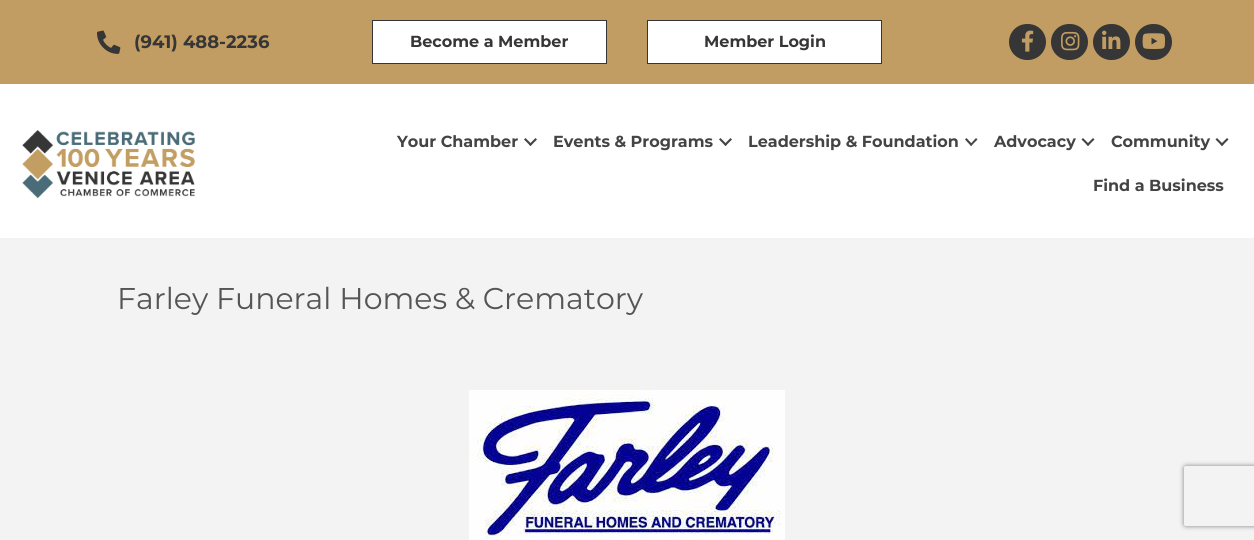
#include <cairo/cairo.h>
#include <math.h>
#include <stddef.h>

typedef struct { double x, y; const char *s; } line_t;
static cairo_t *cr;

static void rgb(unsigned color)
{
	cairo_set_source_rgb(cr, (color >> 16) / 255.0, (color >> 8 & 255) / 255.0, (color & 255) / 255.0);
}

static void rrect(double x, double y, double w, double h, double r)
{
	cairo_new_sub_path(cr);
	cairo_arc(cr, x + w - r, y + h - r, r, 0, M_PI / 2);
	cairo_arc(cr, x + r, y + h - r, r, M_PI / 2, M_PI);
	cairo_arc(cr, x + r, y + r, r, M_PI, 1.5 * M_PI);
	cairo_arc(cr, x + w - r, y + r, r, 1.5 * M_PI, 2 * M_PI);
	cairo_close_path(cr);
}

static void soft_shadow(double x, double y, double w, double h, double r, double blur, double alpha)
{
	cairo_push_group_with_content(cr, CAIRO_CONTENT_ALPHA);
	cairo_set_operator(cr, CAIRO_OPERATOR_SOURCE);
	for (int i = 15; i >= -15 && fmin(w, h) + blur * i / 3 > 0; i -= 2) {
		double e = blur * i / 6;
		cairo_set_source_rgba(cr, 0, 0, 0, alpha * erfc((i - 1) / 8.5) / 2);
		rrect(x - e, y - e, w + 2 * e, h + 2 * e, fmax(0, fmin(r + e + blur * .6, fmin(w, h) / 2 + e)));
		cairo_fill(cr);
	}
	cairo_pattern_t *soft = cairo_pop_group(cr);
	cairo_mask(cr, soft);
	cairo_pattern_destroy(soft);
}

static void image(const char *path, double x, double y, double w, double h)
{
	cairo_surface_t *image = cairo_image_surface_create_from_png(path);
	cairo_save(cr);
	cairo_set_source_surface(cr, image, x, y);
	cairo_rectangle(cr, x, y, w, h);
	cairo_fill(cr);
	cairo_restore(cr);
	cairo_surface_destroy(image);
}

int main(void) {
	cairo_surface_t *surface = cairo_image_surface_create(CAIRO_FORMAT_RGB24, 1254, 540);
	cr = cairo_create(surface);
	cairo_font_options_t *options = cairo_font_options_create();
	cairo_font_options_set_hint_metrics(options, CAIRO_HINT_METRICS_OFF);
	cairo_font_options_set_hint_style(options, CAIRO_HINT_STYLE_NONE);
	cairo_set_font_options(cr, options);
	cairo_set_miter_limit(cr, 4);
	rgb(0xffffff);
	cairo_paint(cr);
	rgb(0xc29d63);
	cairo_rectangle(cr, 0, 0, 1254, 84);
	cairo_fill(cr);
	image("img/1.png", 97, 30, 24, 24);
	rgb(0xffffff);
	cairo_rectangle(cr, 372.5, 20.5, 234, 43);
	cairo_fill_preserve(cr);
	rgb(0x363636);
	cairo_set_line_width(cr, 1);
	cairo_stroke(cr);
	rgb(0xffffff);
	cairo_rectangle(cr, 647.5, 20.5, 234, 43);
	cairo_fill_preserve(cr);
	rgb(0x363636);
	cairo_stroke(cr);
	rrect(1009, 24, 37, 36, 18);
	cairo_fill(cr);
	image("img/2.png", 1021, 30, 13, 22);
	rrect(1051, 24, 37, 36, 18);
	cairo_fill(cr);
	image("img/3.png", 1061, 31, 19, 20);
	rrect(1093, 24, 37, 36, 18);
	cairo_fill(cr);
	image("img/4.png", 1102, 30, 19, 19);
	rrect(1135, 24, 37, 36, 18);
	cairo_fill(cr);
	image("img/5.png", 1142, 33, 23, 16);
	image("img/6.png", 22, 130, 173, 69);
	rgb(0x444444);
	cairo_new_path(cr);
	cairo_move_to(cr, 535.5, 138);
	cairo_line_to(cr, 537, 139.5);
	cairo_line_to(cr, 530.5, 146);
	cairo_line_to(cr, 529, 144.5);
	cairo_close_path(cr);
	cairo_fill(cr);
	cairo_new_path(cr);
	cairo_move_to(cr, 525.5, 138);
	cairo_line_to(cr, 532, 144.5);
	cairo_line_to(cr, 530.5, 146);
	cairo_line_to(cr, 524, 139.5);
	cairo_close_path(cr);
	cairo_fill(cr);
	cairo_new_path(cr);
	cairo_move_to(cr, 730.5, 138);
	cairo_line_to(cr, 732, 139.5);
	cairo_line_to(cr, 725.5, 146);
	cairo_line_to(cr, 724, 144.5);
	cairo_close_path(cr);
	cairo_fill(cr);
	cairo_new_path(cr);
	cairo_move_to(cr, 720.5, 138);
	cairo_line_to(cr, 727, 144.5);
	cairo_line_to(cr, 725.5, 146);
	cairo_line_to(cr, 719, 139.5);
	cairo_close_path(cr);
	cairo_fill(cr);
	cairo_new_path(cr);
	cairo_move_to(cr, 976, 138);
	cairo_line_to(cr, 977.5, 139.5);
	cairo_line_to(cr, 971, 146);
	cairo_line_to(cr, 970, 144.5);
	cairo_close_path(cr);
	cairo_fill(cr);
	cairo_new_path(cr);
	cairo_move_to(cr, 966.5, 138);
	cairo_line_to(cr, 972.5, 144.5);
	cairo_line_to(cr, 971, 146);
	cairo_line_to(cr, 965, 139.5);
	cairo_close_path(cr);
	cairo_fill(cr);
	cairo_new_path(cr);
	cairo_move_to(cr, 1093, 138);
	cairo_line_to(cr, 1094.5, 139.5);
	cairo_line_to(cr, 1088, 146);
	cairo_line_to(cr, 1086.5, 144.5);
	cairo_close_path(cr);
	cairo_fill(cr);
	cairo_new_path(cr);
	cairo_move_to(cr, 1083, 138);
	cairo_line_to(cr, 1089.5, 144.5);
	cairo_line_to(cr, 1088, 146);
	cairo_line_to(cr, 1081.5, 139.5);
	cairo_close_path(cr);
	cairo_fill(cr);
	cairo_new_path(cr);
	cairo_move_to(cr, 1227, 138);
	cairo_line_to(cr, 1228.5, 139.5);
	cairo_line_to(cr, 1222, 146);
	cairo_line_to(cr, 1220.5, 144.5);
	cairo_close_path(cr);
	cairo_fill(cr);
	cairo_new_path(cr);
	cairo_move_to(cr, 1217, 138);
	cairo_line_to(cr, 1223.5, 144.5);
	cairo_line_to(cr, 1222, 146);
	cairo_line_to(cr, 1215.5, 139.5);
	cairo_close_path(cr);
	cairo_fill(cr);
	rgb(0xf3f3f3);
	cairo_rectangle(cr, 0, 238, 1254, 302);
	cairo_fill(cr);
	image("img/7.png", 469, 390, 316, 150);
	cairo_save(cr);
	cairo_set_fill_rule(cr, CAIRO_FILL_RULE_EVEN_ODD);
	cairo_new_path(cr);
	cairo_move_to(cr, 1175, 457);
	cairo_line_to(cr, 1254, 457);
	cairo_line_to(cr, 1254, 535);
	cairo_line_to(cr, 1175, 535);
	cairo_close_path(cr);
	cairo_move_to(cr, 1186, 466);
	cairo_line_to(cr, 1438, 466);
	cairo_curve_to(cr, 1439, 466, 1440, 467, 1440, 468);
	cairo_line_to(cr, 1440, 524);
	cairo_curve_to(cr, 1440, 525, 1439, 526, 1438, 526);
	cairo_line_to(cr, 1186, 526);
	cairo_curve_to(cr, 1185, 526, 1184, 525, 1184, 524);
	cairo_line_to(cr, 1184, 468);
	cairo_curve_to(cr, 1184, 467, 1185, 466, 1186, 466);
	cairo_close_path(cr);
	cairo_clip(cr);
	rgb(0x808080);
	soft_shadow(1184, 466, 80, 60, 2, 2.5, 1);
	cairo_restore(cr);
	cairo_select_font_face(cr, "Montserrat", CAIRO_FONT_SLANT_NORMAL, CAIRO_FONT_WEIGHT_BOLD);
	cairo_set_font_size(cr, 18);
	rgb(0x363636);
	cairo_move_to(cr, 134, 48);
	cairo_show_text(cr, "(941) 488-2236");
	cairo_set_font_size(cr, 16);
	cairo_move_to(cr, 410, 47);
	cairo_show_text(cr, "Become a Member");
	cairo_move_to(cr, 704, 47);
	cairo_show_text(cr, "Member Login");
	rgb(0x444444);
	{
		static const line_t items[] = {
			{397, 147, "Your Chamber"},
			{553, 147, "Events & Programs"},
			{748, 147, "Leadership & Foundation"},
			{994, 147, "Advocacy"},
			{1111, 147, "Community"},
			{1093, 191, "Find a Business"},
		};
		for (size_t i = 0; i < sizeof items / sizeof *items; i++) {
			cairo_move_to(cr, items[i].x, items[i].y);
			cairo_show_text(cr, items[i].s);
		}
	}
	cairo_select_font_face(cr, "Montserrat", CAIRO_FONT_SLANT_NORMAL, CAIRO_FONT_WEIGHT_NORMAL);
	cairo_set_font_size(cr, 30);
	rgb(0x555555);
	cairo_move_to(cr, 117, 309);
	cairo_show_text(cr, "Farley Funeral Homes & Crematory");
	cairo_surface_write_to_png(surface, "page.png");
	cairo_font_options_destroy(options);
	cairo_destroy(cr);
	cairo_surface_destroy(surface);
	return 0;
}
